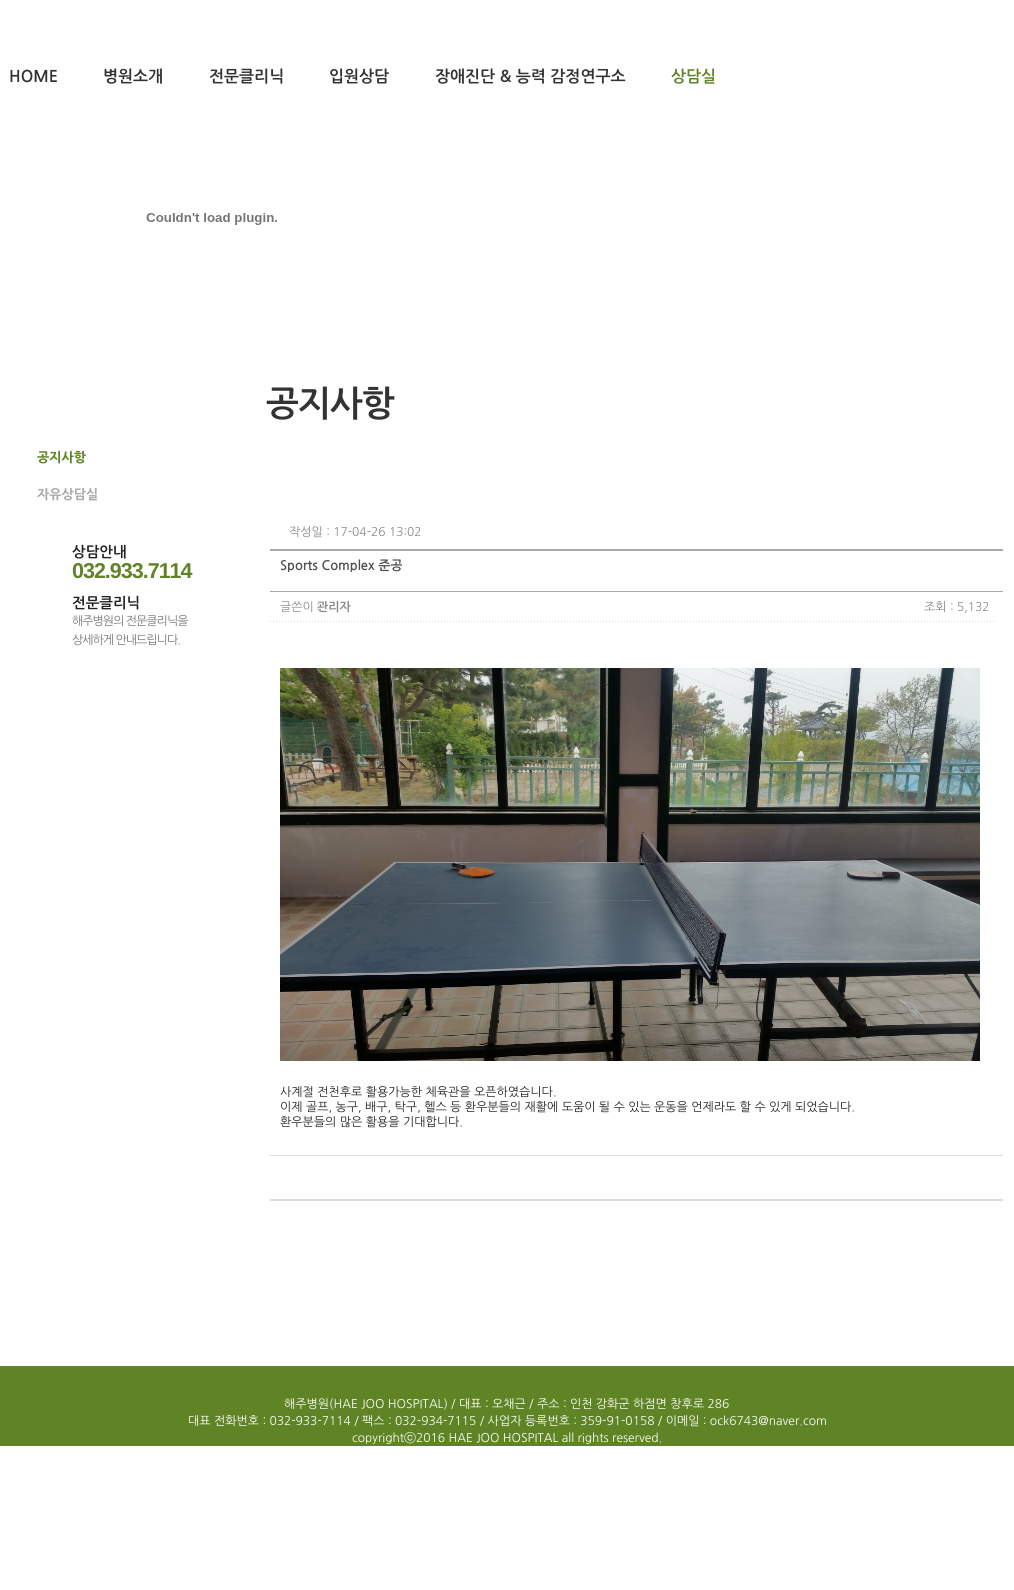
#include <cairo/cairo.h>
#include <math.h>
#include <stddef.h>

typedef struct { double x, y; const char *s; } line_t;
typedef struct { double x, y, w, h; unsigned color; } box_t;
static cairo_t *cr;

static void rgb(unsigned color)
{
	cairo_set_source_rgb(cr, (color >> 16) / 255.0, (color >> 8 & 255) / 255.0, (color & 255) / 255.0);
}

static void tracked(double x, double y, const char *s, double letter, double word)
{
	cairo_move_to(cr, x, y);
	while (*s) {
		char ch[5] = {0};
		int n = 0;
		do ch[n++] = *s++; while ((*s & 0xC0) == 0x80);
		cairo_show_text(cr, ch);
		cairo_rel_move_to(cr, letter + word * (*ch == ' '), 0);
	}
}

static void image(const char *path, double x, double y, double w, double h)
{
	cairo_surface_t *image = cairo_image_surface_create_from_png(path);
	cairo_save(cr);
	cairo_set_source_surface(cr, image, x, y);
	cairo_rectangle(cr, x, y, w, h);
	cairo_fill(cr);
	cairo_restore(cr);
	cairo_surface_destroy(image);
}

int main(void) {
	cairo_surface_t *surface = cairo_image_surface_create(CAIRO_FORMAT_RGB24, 1014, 1590);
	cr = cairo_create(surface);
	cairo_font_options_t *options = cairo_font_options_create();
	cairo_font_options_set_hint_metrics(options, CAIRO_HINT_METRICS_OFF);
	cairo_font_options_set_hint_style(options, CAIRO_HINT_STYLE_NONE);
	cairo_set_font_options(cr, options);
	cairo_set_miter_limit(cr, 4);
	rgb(0xffffff);
	cairo_paint(cr);
	image("img/1.png", 146, 213, 131, 12);
	rgb(0xa9a9a9);
	cairo_rectangle(cr, 270, 549, 733, 2);
	cairo_fill(cr);
	cairo_rectangle(cr, 270, 591, 733, 1);
	cairo_fill(cr);
	image("img/2.png", 270, 621, 724, 1);
	image("img/3.png", 280, 668, 700, 393);
	{
		static const box_t items[] = {
			{270, 1155, 733, 1, 0xdddddd},
			{270, 1199, 733, 2, 0xdedede},
			{0, 1366, 1014, 80, 0x5f8425},
		};
		for (size_t i = 0; i < sizeof items / sizeof *items; i++) {
			rgb(items[i].color);
			cairo_rectangle(cr, items[i].x, items[i].y, items[i].w, items[i].h);
			cairo_fill(cr);
		}
	}
	cairo_select_font_face(cr, "NanumGothic", CAIRO_FONT_SLANT_NORMAL, CAIRO_FONT_WEIGHT_BOLD);
	cairo_set_font_size(cr, 16);
	rgb(0x333333);
	{
		static const line_t items[] = {
			{9, 82, "HOME"},
			{103, 82, "병원소개"},
			{209, 82, "전문클리닉"},
			{329, 82, "입원상담"},
			{435, 82, "장애진단 & 능력 감정연구소"},
		};
		for (size_t i = 0; i < sizeof items / sizeof *items; i++) {
			cairo_move_to(cr, items[i].x, items[i].y);
			cairo_show_text(cr, items[i].s);
		}
	}
	rgb(0x5f8425);
	cairo_move_to(cr, 671, 82);
	cairo_show_text(cr, "상담실");
	cairo_set_font_size(cr, 35);
	rgb(0x333333);
	tracked(266, 416, "공지사항", -1, 0);
	cairo_select_font_face(cr, "NanumGothic ExtraBold", CAIRO_FONT_SLANT_NORMAL, CAIRO_FONT_WEIGHT_NORMAL);
	cairo_set_font_size(cr, 13);
	rgb(0x5f8425);
	cairo_move_to(cr, 37, 462);
	cairo_show_text(cr, "공지사항");
	rgb(0xacacac);
	cairo_move_to(cr, 37, 499);
	cairo_show_text(cr, "자유상담실");
	cairo_select_font_face(cr, "NanumGothic", CAIRO_FONT_SLANT_NORMAL, CAIRO_FONT_WEIGHT_BOLD);
	cairo_set_font_size(cr, 14.5);
	rgb(0x222222);
	cairo_move_to(cr, 72, 557);
	cairo_show_text(cr, "상담안내");
	cairo_select_font_face(cr, "Liberation Sans", CAIRO_FONT_SLANT_NORMAL, CAIRO_FONT_WEIGHT_BOLD);
	cairo_set_font_size(cr, 21.5);
	rgb(0x5f8425);
	tracked(72, 578, "032.933.7114", -1, 0);
	cairo_select_font_face(cr, "NanumGothic", CAIRO_FONT_SLANT_NORMAL, CAIRO_FONT_WEIGHT_BOLD);
	cairo_set_font_size(cr, 14.5);
	rgb(0x222222);
	cairo_move_to(cr, 72, 608);
	cairo_show_text(cr, "전문클리닉");
	cairo_select_font_face(cr, "NanumGothic", CAIRO_FONT_SLANT_NORMAL, CAIRO_FONT_WEIGHT_NORMAL);
	cairo_set_font_size(cr, 12);
	rgb(0x777777);
	tracked(72, 625, "해주병원의 전문클리닉을", -1, 0);
	tracked(72, 644, "상세하게 안내드립니다.", -1, 0);
	rgb(0x888888);
	cairo_move_to(cr, 289, 536);
	cairo_show_text(cr, "작성일 : 17-04-26 13:02");
	cairo_select_font_face(cr, "NanumGothic", CAIRO_FONT_SLANT_NORMAL, CAIRO_FONT_WEIGHT_BOLD);
	cairo_set_font_size(cr, 13);
	rgb(0x505050);
	cairo_move_to(cr, 280, 570);
	cairo_show_text(cr, "Sports Complex 준공");
	cairo_select_font_face(cr, "NanumGothic", CAIRO_FONT_SLANT_NORMAL, CAIRO_FONT_WEIGHT_NORMAL);
	cairo_set_font_size(cr, 12);
	rgb(0x888888);
	tracked(280, 611, "글쓴이 :", 0, -1);
	cairo_select_font_face(cr, "NanumGothic", CAIRO_FONT_SLANT_NORMAL, CAIRO_FONT_WEIGHT_BOLD);
	cairo_move_to(cr, 317, 611);
	cairo_show_text(cr, "관리자");
	cairo_select_font_face(cr, "NanumGothic", CAIRO_FONT_SLANT_NORMAL, CAIRO_FONT_WEIGHT_NORMAL);
	cairo_move_to(cr, 924, 611);
	cairo_show_text(cr, "조회 : 5,132");
	rgb(0x222222);
	{
		static const line_t items[] = {
			{280, 1096, "사계절 전천후로 활용가능한 체육관을 오픈하였습니다."},
			{280, 1111, "이제 골프, 농구, 배구, 탁구, 헬스 등 환우분들의 재활에 도움이 될 수 있는 운동을 언제라도 할 수 있게 되었습니다."},
			{280, 1126, "환우분들의 많은 활용을 기대합니다."},
		};
		for (size_t i = 0; i < sizeof items / sizeof *items; i++) {
			cairo_move_to(cr, items[i].x, items[i].y);
			cairo_show_text(cr, items[i].s);
		}
	}
	rgb(0xffffff);
	{
		static const line_t items[] = {
			{284, 1408, "해주병원(HAE JOO HOSPITAL) / 대표 : 오채근 / 주소 : 인천 강화군 하점면 창후로 286"},
			{188, 1425, "대표 전화번호 : 032-933-7114 / 팩스 : 032-934-7115 / 사업자 등록번호 : 359-91-0158 / 이메일 : ock6743@naver.com"},
			{352, 1442, "copyright"},
		};
		for (size_t i = 0; i < sizeof items / sizeof *items; i++) {
			cairo_move_to(cr, items[i].x, items[i].y);
			cairo_show_text(cr, items[i].s);
		}
	}
	cairo_select_font_face(cr, "WenQuanYi Zen Hei Medium", CAIRO_FONT_SLANT_NORMAL, CAIRO_FONT_WEIGHT_NORMAL);
	cairo_move_to(cr, 404, 1442);
	cairo_show_text(cr, "ⓒ");
	cairo_select_font_face(cr, "NanumGothic", CAIRO_FONT_SLANT_NORMAL, CAIRO_FONT_WEIGHT_NORMAL);
	cairo_move_to(cr, 416, 1442);
	cairo_show_text(cr, "2016 HAE JOO HOSPITAL all rights reserved.");
	cairo_surface_write_to_png(surface, "page.png");
	cairo_font_options_destroy(options);
	cairo_destroy(cr);
	cairo_surface_destroy(surface);
	return 0;
}
